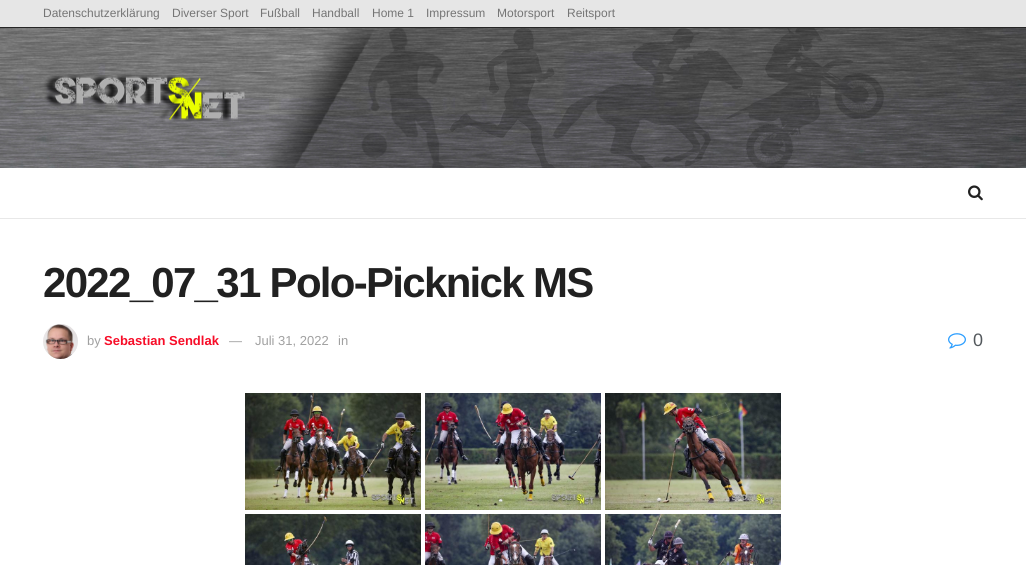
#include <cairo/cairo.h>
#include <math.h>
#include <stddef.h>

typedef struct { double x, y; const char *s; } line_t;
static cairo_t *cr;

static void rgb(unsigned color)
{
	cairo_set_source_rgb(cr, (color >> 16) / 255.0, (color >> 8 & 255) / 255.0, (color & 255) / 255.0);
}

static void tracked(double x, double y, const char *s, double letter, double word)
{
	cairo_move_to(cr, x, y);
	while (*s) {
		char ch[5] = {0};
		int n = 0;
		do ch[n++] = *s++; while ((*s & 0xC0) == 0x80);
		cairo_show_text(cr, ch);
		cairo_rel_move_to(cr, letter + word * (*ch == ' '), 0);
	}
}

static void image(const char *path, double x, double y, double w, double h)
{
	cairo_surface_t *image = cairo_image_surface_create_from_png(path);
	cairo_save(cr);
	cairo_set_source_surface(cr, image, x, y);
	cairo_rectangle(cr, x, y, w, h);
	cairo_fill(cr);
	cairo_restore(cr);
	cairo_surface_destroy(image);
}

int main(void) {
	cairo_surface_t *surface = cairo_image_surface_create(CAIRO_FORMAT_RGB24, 1026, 565);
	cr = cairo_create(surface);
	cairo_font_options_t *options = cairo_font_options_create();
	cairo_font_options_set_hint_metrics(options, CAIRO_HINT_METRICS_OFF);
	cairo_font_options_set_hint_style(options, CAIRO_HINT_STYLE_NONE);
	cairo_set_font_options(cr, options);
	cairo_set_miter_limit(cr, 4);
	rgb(0xffffff);
	cairo_paint(cr);
	rgb(0xe6e6e6);
	cairo_rectangle(cr, 0, 0, 1026, 27);
	cairo_fill(cr);
	rgb(0x262626);
	cairo_rectangle(cr, 0, 27, 1026, 1);
	cairo_fill(cr);
	image("img/1.png", 0, 28, 1026, 140);
	image("img/2.png", 44, 74, 201, 48);
	rgb(0xe8e8e8);
	cairo_rectangle(cr, 0, 218, 1026, 1);
	cairo_fill(cr);
	image("img/3.png", 968, 185, 15, 16);
	image("img/4.png", 43, 324, 35, 35);
	image("img/5.png", 948, 333, 18, 16);
	image("img/6.png", 245, 393, 176, 117);
	image("img/7.png", 425, 393, 176, 117);
	image("img/8.png", 605, 393, 176, 117);
	image("img/9.png", 245, 514, 176, 51);
	image("img/10.png", 425, 514, 176, 51);
	image("img/11.png", 605, 514, 176, 51);
	cairo_select_font_face(cr, "Liberation Sans", CAIRO_FONT_SLANT_NORMAL, CAIRO_FONT_WEIGHT_NORMAL);
	cairo_set_font_size(cr, 12);
	rgb(0x757575);
	{
		static const line_t items[] = {
			{43, 17, "Datenschutzerklärung"},
			{172, 17, "Diverser Sport"},
			{260, 17, "Fußball"},
			{312, 17, "Handball"},
			{372, 17, "Home 1"},
			{426, 17, "Impressum"},
			{497, 17, "Motorsport"},
			{567, 17, "Reitsport"},
		};
		for (size_t i = 0; i < sizeof items / sizeof *items; i++) {
			cairo_move_to(cr, items[i].x, items[i].y);
			cairo_show_text(cr, items[i].s);
		}
	}
	cairo_select_font_face(cr, "Liberation Sans", CAIRO_FONT_SLANT_NORMAL, CAIRO_FONT_WEIGHT_BOLD);
	cairo_set_font_size(cr, 42);
	rgb(0x212121);
	tracked(43, 297, "2022_07_31 Polo-Picknick MS", -1.7, 0);
	cairo_select_font_face(cr, "Liberation Sans", CAIRO_FONT_SLANT_NORMAL, CAIRO_FONT_WEIGHT_NORMAL);
	cairo_set_font_size(cr, 13);
	rgb(0xa0a0a0);
	cairo_move_to(cr, 87, 345);
	cairo_show_text(cr, "by");
	cairo_select_font_face(cr, "Liberation Sans", CAIRO_FONT_SLANT_NORMAL, CAIRO_FONT_WEIGHT_BOLD);
	rgb(0xf70d28);
	cairo_move_to(cr, 104, 345);
	cairo_show_text(cr, "Sebastian Sendlak");
	cairo_select_font_face(cr, "Liberation Sans", CAIRO_FONT_SLANT_NORMAL, CAIRO_FONT_WEIGHT_NORMAL);
	rgb(0xa0a0a0);
	{
		static const line_t items[] = {
			{229, 345, "—"},
			{255, 345, "Juli 31, 2022"},
			{338, 345, "in"},
		};
		for (size_t i = 0; i < sizeof items / sizeof *items; i++) {
			cairo_move_to(cr, items[i].x, items[i].y);
			cairo_show_text(cr, items[i].s);
		}
	}
	cairo_set_font_size(cr, 18);
	rgb(0x53585c);
	cairo_move_to(cr, 973, 346);
	cairo_show_text(cr, "0");
	cairo_surface_write_to_png(surface, "page.png");
	cairo_font_options_destroy(options);
	cairo_destroy(cr);
	cairo_surface_destroy(surface);
	return 0;
}
